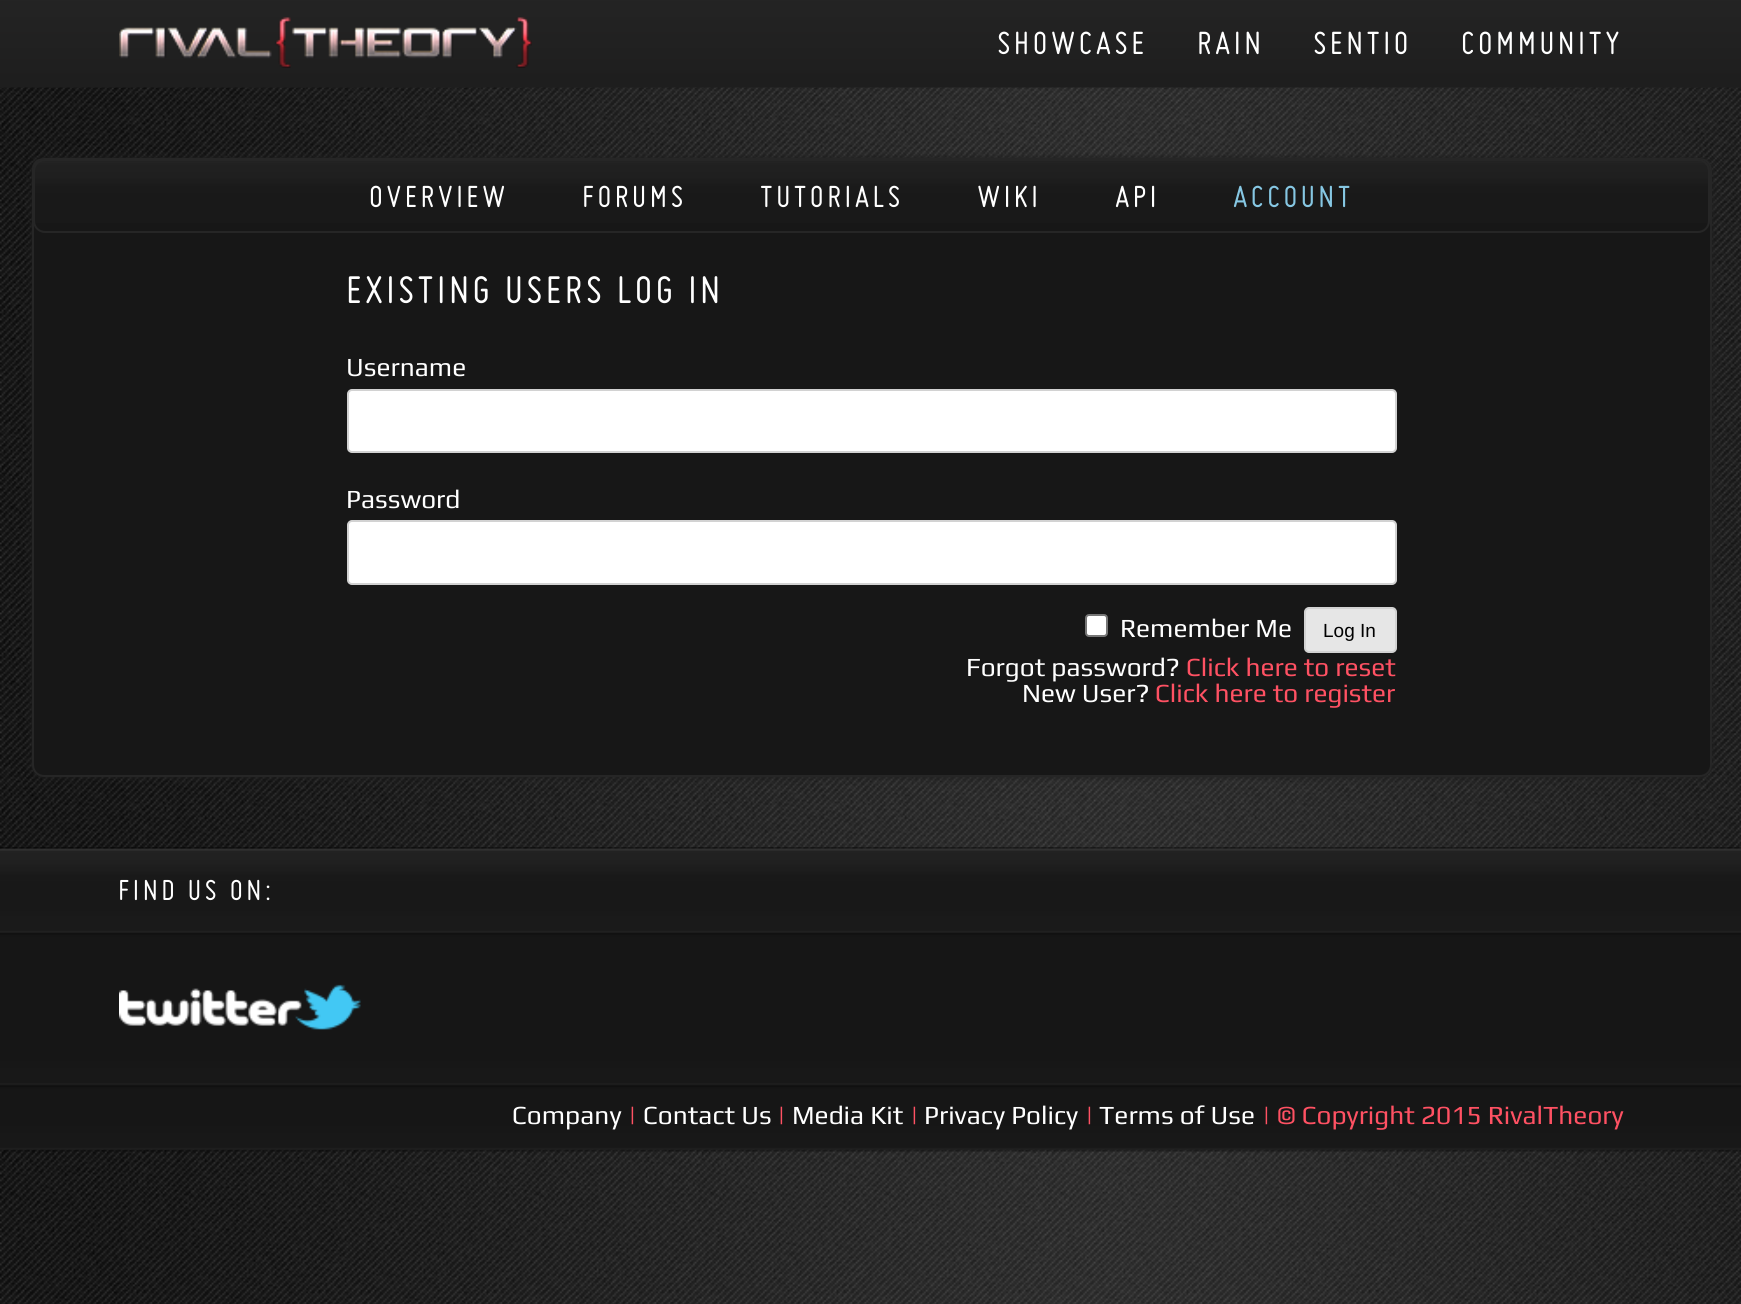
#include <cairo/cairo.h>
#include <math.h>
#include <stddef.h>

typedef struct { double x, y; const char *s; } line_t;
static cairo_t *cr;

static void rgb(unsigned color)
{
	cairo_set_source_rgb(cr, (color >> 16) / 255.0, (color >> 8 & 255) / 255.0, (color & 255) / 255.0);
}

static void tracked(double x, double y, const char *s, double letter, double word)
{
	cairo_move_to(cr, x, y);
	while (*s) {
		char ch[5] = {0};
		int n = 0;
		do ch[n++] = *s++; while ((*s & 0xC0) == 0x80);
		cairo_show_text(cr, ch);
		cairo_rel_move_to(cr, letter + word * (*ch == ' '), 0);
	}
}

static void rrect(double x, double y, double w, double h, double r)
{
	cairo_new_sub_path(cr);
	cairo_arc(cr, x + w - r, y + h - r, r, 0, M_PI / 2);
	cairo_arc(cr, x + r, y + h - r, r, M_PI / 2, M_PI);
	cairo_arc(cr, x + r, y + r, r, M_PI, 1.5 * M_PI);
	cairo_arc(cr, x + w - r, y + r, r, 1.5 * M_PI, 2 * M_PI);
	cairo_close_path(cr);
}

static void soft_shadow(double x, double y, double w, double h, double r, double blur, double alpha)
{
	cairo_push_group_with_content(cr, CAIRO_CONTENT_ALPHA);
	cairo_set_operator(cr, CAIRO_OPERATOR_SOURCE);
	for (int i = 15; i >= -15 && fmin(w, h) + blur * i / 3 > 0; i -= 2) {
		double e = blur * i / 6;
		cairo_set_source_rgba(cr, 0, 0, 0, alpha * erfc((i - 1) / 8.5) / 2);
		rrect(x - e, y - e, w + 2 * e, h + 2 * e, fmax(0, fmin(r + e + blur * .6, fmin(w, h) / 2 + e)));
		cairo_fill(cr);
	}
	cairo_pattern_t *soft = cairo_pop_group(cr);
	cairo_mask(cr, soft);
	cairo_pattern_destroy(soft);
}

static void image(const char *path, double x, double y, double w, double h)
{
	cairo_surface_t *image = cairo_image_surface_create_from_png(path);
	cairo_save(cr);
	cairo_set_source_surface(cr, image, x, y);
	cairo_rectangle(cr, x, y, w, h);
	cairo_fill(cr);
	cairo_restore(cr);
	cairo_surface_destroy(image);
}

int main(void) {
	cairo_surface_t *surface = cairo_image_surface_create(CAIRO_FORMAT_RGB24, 1741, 1304);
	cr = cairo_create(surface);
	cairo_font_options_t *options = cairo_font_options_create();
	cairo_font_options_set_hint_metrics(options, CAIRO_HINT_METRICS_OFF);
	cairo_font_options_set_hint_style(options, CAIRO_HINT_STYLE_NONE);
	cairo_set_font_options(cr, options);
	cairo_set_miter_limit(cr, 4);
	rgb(0xffffff);
	cairo_paint(cr);
	image("img/1.png", 0, 87, 1741, 1217);
	image("img/2.png", 0, 0, 1741, 88);
	image("img/3.png", 119, 17, 413, 51);
	rgb(0x1e1e1e);
	soft_shadow(32, 158, 1680, 619, 12, 3.5, 1);
	rgb(0x171717);
	rrect(32, 158, 1680, 619, 12);
	cairo_fill(cr);
	image("img/4.png", 32, 159, 1679, 12);
	rrect(33, 159, 1678, 617, 11);
	rgb(0x262626);
	cairo_stroke(cr);
	image("img/5.png", 33, 159, 1676, 64);
	rrect(34, 160, 1675, 72, 11);
	cairo_stroke(cr);
	rgb(0xffffff);
	rrect(348, 390, 1048, 62, 4);
	cairo_fill_preserve(cr);
	rgb(0xd2d2d2);
	cairo_stroke(cr);
	rgb(0xffffff);
	rrect(348, 521, 1048, 63, 4);
	cairo_fill_preserve(cr);
	rgb(0xd2d2d2);
	cairo_stroke(cr);
	rgb(0xffffff);
	rrect(1086, 615, 21, 21, 3);
	cairo_fill_preserve(cr);
	rgb(0x767676);
	cairo_stroke(cr);
	rgb(0xe6e6e6);
	rrect(1305, 608, 91, 44, 4);
	cairo_fill_preserve(cr);
	rgb(0xd2d2d2);
	cairo_stroke(cr);
	image("img/6.png", 0, 847, 1741, 305);
	image("img/7.png", 119, 984, 242, 46);
	cairo_select_font_face(cr, "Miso", CAIRO_FONT_SLANT_ITALIC, CAIRO_FONT_WEIGHT_NORMAL);
	cairo_set_font_size(cr, 35);
	rgb(0xffffff);
	{
		static const line_t items[] = {
			{997, 54, "SHOWCASE"},
			{1197, 54, "RAIN"},
			{1313, 54, "SENTIO"},
			{1461, 54, "COMMUNITY"},
		};
		for (size_t i = 0; i < sizeof items / sizeof *items; i++) {
			tracked(items[i].x, items[i].y, items[i].s, 3.5, 0);
		}
	}
	cairo_set_font_size(cr, 33.25);
	{
		static const line_t items[] = {
			{369, 207, "OVERVIEW"},
			{582, 207, "FORUMS"},
			{760, 207, "TUTORIALS"},
			{977, 207, "WIKI"},
			{1115, 207, "API"},
		};
		for (size_t i = 0; i < sizeof items / sizeof *items; i++) {
			tracked(items[i].x, items[i].y, items[i].s, 3.5, 0);
		}
	}
	rgb(0x86c7e3);
	tracked(1233, 207, "ACCOUNT", 3.5, 0);
	cairo_set_font_size(cr, 42);
	rgb(0xffffff);
	tracked(346, 303, "EXISTING USERS LOG IN", 3.5, 0);
	cairo_select_font_face(cr, "Play", CAIRO_FONT_SLANT_NORMAL, CAIRO_FONT_WEIGHT_NORMAL);
	cairo_set_font_size(cr, 26.25);
	{
		static const line_t items[] = {
			{346, 376, "Username"},
			{346, 508, "Password"},
			{1120, 637, "Remember Me"},
		};
		for (size_t i = 0; i < sizeof items / sizeof *items; i++) {
			cairo_move_to(cr, items[i].x, items[i].y);
			cairo_show_text(cr, items[i].s);
		}
	}
	cairo_select_font_face(cr, "Liberation Sans", CAIRO_FONT_SLANT_NORMAL, CAIRO_FONT_WEIGHT_NORMAL);
	cairo_set_font_size(cr, 19);
	rgb(0x000000);
	cairo_move_to(cr, 1323, 637);
	cairo_show_text(cr, "Log In");
	cairo_select_font_face(cr, "Play", CAIRO_FONT_SLANT_NORMAL, CAIRO_FONT_WEIGHT_NORMAL);
	cairo_set_font_size(cr, 26.25);
	rgb(0xffffff);
	cairo_move_to(cr, 966, 676);
	cairo_show_text(cr, "Forgot password?");
	rgb(0xff5163);
	cairo_move_to(cr, 1186, 676);
	cairo_show_text(cr, "Click here to reset");
	rgb(0xffffff);
	cairo_move_to(cr, 1022, 702);
	cairo_show_text(cr, "New User?");
	rgb(0xff5163);
	cairo_move_to(cr, 1155, 702);
	cairo_show_text(cr, "Click here to register");
	cairo_select_font_face(cr, "Miso", CAIRO_FONT_SLANT_ITALIC, CAIRO_FONT_WEIGHT_NORMAL);
	cairo_set_font_size(cr, 31.5);
	rgb(0xffffff);
	tracked(118, 900, "FIND US ON:", 3.5, 0);
	cairo_select_font_face(cr, "Play", CAIRO_FONT_SLANT_NORMAL, CAIRO_FONT_WEIGHT_NORMAL);
	cairo_set_font_size(cr, 26.25);
	cairo_move_to(cr, 512, 1124);
	cairo_show_text(cr, "Company");
	rgb(0xff5163);
	cairo_move_to(cr, 628, 1124);
	cairo_show_text(cr, "|");
	rgb(0xffffff);
	cairo_move_to(cr, 643, 1124);
	cairo_show_text(cr, "Contact Us");
	rgb(0xff5163);
	cairo_move_to(cr, 777, 1124);
	cairo_show_text(cr, "|");
	rgb(0xffffff);
	cairo_move_to(cr, 792, 1124);
	cairo_show_text(cr, "Media Kit");
	rgb(0xff5163);
	cairo_move_to(cr, 910, 1124);
	cairo_show_text(cr, "|");
	rgb(0xffffff);
	cairo_move_to(cr, 924, 1124);
	cairo_show_text(cr, "Privacy Policy");
	rgb(0xff5163);
	cairo_move_to(cr, 1085, 1124);
	cairo_show_text(cr, "|");
	rgb(0xffffff);
	cairo_move_to(cr, 1099, 1124);
	cairo_show_text(cr, "Terms of Use");
	rgb(0xff5163);
	cairo_move_to(cr, 1262, 1124);
	cairo_show_text(cr, "| © Copyright 2015 RivalTheory");
	cairo_surface_write_to_png(surface, "page.png");
	cairo_font_options_destroy(options);
	cairo_destroy(cr);
	cairo_surface_destroy(surface);
	return 0;
}
